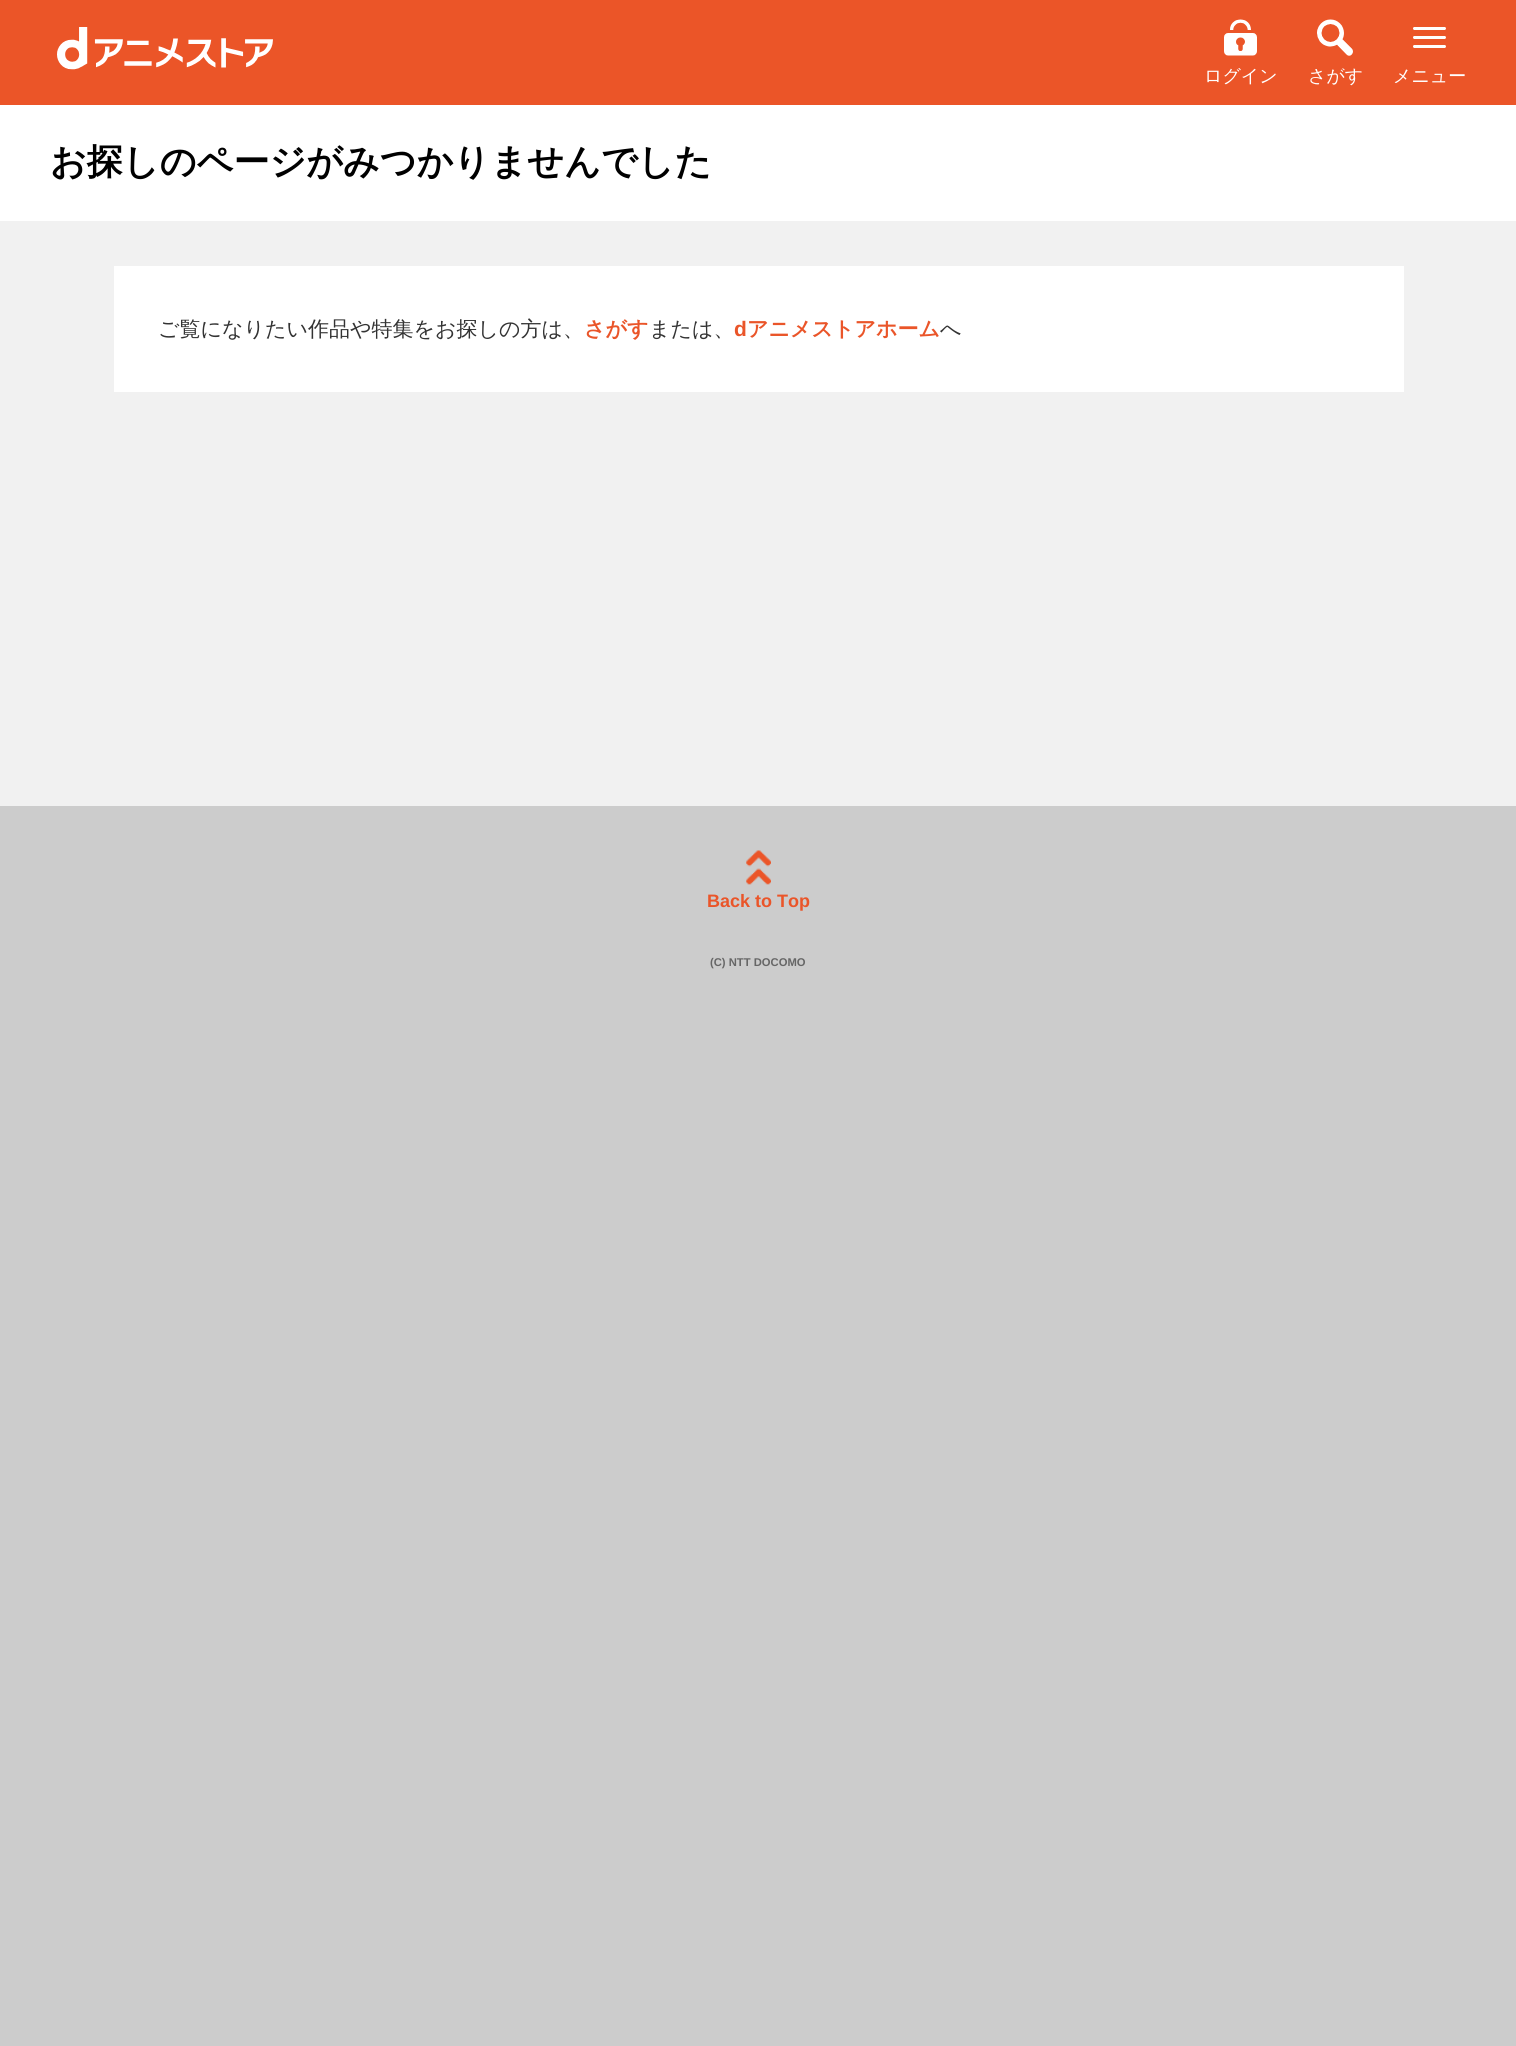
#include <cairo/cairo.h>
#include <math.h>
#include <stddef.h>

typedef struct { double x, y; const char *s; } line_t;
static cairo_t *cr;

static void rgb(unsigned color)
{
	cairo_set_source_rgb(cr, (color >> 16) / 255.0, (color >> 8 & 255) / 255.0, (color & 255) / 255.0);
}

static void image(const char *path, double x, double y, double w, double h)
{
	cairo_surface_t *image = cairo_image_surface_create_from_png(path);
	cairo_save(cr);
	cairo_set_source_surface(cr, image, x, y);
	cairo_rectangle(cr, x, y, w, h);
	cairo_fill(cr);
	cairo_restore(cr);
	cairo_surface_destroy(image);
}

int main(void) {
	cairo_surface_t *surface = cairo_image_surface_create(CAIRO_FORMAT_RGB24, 1516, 2046);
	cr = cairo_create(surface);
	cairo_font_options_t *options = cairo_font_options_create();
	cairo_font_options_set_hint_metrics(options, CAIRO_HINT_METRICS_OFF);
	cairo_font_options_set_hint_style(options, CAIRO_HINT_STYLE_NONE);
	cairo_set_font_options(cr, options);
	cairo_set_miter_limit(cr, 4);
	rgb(0xcccccc);
	cairo_paint(cr);
	rgb(0xf1f1f1);
	cairo_rectangle(cr, 0, 221, 1516, 585);
	cairo_fill(cr);
	rgb(0xeb5528);
	cairo_rectangle(cr, 0, 0, 1516, 105);
	cairo_fill(cr);
	image("img/1.png", 57, 27, 216, 43);
	image("img/2.png", 1224, 19, 33, 37);
	image("img/3.png", 1317, 19, 36, 37);
	image("img/4.png", 1413, 27, 33, 21);
	rgb(0xffffff);
	cairo_rectangle(cr, 0, 105, 1516, 116);
	cairo_fill(cr);
	cairo_rectangle(cr, 114, 266, 1290, 126);
	cairo_fill(cr);
	image("img/5.png", 746, 850, 25, 35);
	cairo_select_font_face(cr, "WenQuanYi Zen Hei Medium", CAIRO_FONT_SLANT_NORMAL, CAIRO_FONT_WEIGHT_NORMAL);
	cairo_set_font_size(cr, 18);
	{
		static const line_t items[] = {
			{1204, 82, "ログイン"},
			{1308, 82, "さがす"},
			{1393, 82, "メニュー"},
		};
		for (size_t i = 0; i < sizeof items / sizeof *items; i++) {
			cairo_move_to(cr, items[i].x, items[i].y);
			cairo_show_text(cr, items[i].s);
		}
	}
	cairo_select_font_face(cr, "WenQuanYi Zen Hei", CAIRO_FONT_SLANT_NORMAL, CAIRO_FONT_WEIGHT_BOLD);
	cairo_set_font_size(cr, 36);
	rgb(0x000000);
	cairo_move_to(cr, 50, 174);
	cairo_show_text(cr, "お探しのページがみつかりませんでした");
	cairo_select_font_face(cr, "WenQuanYi Zen Hei Medium", CAIRO_FONT_SLANT_NORMAL, CAIRO_FONT_WEIGHT_NORMAL);
	cairo_set_font_size(cr, 21);
	rgb(0x333333);
	cairo_move_to(cr, 158, 336);
	cairo_show_text(cr, "ご覧になりたい作品や特集をお探しの方は、");
	cairo_select_font_face(cr, "WenQuanYi Zen Hei", CAIRO_FONT_SLANT_NORMAL, CAIRO_FONT_WEIGHT_BOLD);
	rgb(0xea5529);
	cairo_move_to(cr, 584, 336);
	cairo_show_text(cr, "さがす");
	cairo_select_font_face(cr, "WenQuanYi Zen Hei Medium", CAIRO_FONT_SLANT_NORMAL, CAIRO_FONT_WEIGHT_NORMAL);
	rgb(0x333333);
	cairo_move_to(cr, 649, 336);
	cairo_show_text(cr, "または、");
	cairo_select_font_face(cr, "Liberation Sans", CAIRO_FONT_SLANT_NORMAL, CAIRO_FONT_WEIGHT_BOLD);
	rgb(0xea5529);
	cairo_move_to(cr, 734, 336);
	cairo_show_text(cr, "d");
	cairo_select_font_face(cr, "WenQuanYi Zen Hei", CAIRO_FONT_SLANT_NORMAL, CAIRO_FONT_WEIGHT_BOLD);
	cairo_move_to(cr, 747, 336);
	cairo_show_text(cr, "アニメストアホーム");
	cairo_select_font_face(cr, "WenQuanYi Zen Hei Medium", CAIRO_FONT_SLANT_NORMAL, CAIRO_FONT_WEIGHT_NORMAL);
	rgb(0x333333);
	cairo_move_to(cr, 940, 336);
	cairo_show_text(cr, "へ");
	cairo_select_font_face(cr, "Liberation Sans", CAIRO_FONT_SLANT_NORMAL, CAIRO_FONT_WEIGHT_BOLD);
	cairo_set_font_size(cr, 18);
	rgb(0xea5529);
	cairo_move_to(cr, 707, 907);
	cairo_show_text(cr, "Back to Top");
	cairo_set_font_size(cr, 11.25);
	rgb(0x666666);
	cairo_move_to(cr, 710, 966);
	cairo_show_text(cr, "(C) NTT DOCOMO");
	cairo_surface_write_to_png(surface, "page.png");
	cairo_font_options_destroy(options);
	cairo_destroy(cr);
	cairo_surface_destroy(surface);
	return 0;
}
